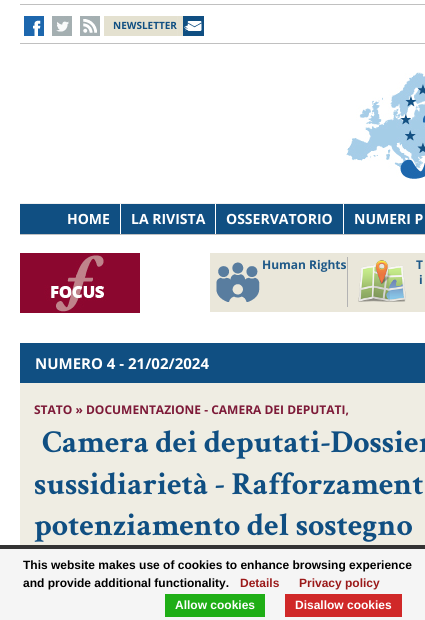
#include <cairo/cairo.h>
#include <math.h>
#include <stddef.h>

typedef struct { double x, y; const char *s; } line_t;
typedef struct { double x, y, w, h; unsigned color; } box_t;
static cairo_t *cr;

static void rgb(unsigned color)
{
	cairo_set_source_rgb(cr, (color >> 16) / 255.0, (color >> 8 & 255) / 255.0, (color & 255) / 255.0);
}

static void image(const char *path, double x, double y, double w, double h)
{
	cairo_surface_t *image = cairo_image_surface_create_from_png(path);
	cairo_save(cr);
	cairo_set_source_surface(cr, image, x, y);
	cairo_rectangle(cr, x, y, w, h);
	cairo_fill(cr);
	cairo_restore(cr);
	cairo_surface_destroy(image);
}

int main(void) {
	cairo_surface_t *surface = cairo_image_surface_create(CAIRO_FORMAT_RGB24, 425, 620);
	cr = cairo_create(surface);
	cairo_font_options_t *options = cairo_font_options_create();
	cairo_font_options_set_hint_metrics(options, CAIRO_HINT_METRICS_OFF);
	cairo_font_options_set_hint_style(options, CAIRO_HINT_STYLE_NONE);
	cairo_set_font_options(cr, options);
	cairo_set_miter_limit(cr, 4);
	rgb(0xffffff);
	cairo_paint(cr);
	rgb(0xc0c0c0);
	cairo_rectangle(cr, 20, 4, 405, 1);
	cairo_fill(cr);
	cairo_rectangle(cr, 20, 43, 405, 1);
	cairo_fill(cr);
	image("img/1.png", 24, 16, 20, 20);
	image("img/2.png", 52, 16, 20, 20);
	image("img/3.png", 80, 16, 20, 20);
	image("img/4.png", 104, 16, 100, 20);
	image("img/5.png", 346, 72, 79, 107);
	{
		static const box_t items[] = {
			{20, 204, 100, 30, 0x104f82},
			{20, 203, 405, 1, 0xf0f0f0},
			{20, 234, 405, 1, 0xc0c0c0},
			{121, 204, 94, 30, 0x104f82},
			{216, 204, 127, 30, 0x104f82},
			{344, 204, 81, 30, 0x104f82},
		};
		for (size_t i = 0; i < sizeof items / sizeof *items; i++) {
			rgb(items[i].color);
			cairo_rectangle(cr, items[i].x, items[i].y, items[i].w, items[i].h);
			cairo_fill(cr);
		}
	}
	image("img/6.png", 20, 253, 120, 60);
	rgb(0xeae7da);
	cairo_rectangle(cr, 210, 253, 215, 59);
	cairo_fill(cr);
	rgb(0xb3b3b3);
	cairo_rectangle(cr, 347, 257, 1, 50);
	cairo_fill(cr);
	image("img/7.png", 216, 262, 44, 40);
	image("img/8.png", 358, 260, 48, 42);
	{
		static const box_t items[] = {
			{20, 383, 405, 162, 0xefede3},
			{20, 343, 405, 40, 0x104f82},
			{0, 549, 425, 71, 0xf5f5f5},
			{0, 545, 425, 4, 0x333333},
			{165, 594, 100, 23, 0x1fae16},
			{285, 594, 117, 23, 0xd02828},
		};
		for (size_t i = 0; i < sizeof items / sizeof *items; i++) {
			rgb(items[i].color);
			cairo_rectangle(cr, items[i].x, items[i].y, items[i].w, items[i].h);
			cairo_fill(cr);
		}
	}
	cairo_select_font_face(cr, "Open Sans", CAIRO_FONT_SLANT_NORMAL, CAIRO_FONT_WEIGHT_BOLD);
	cairo_set_font_size(cr, 10);
	rgb(0x104f82);
	cairo_move_to(cr, 113, 29);
	cairo_show_text(cr, "NEWSLETTER");
	cairo_set_font_size(cr, 14);
	rgb(0xffffff);
	{
		static const line_t items[] = {
			{67, 224, "HOME"},
			{131, 224, "LA RIVISTA"},
			{226, 224, "OSSERVATORIO"},
			{354, 224, "NUMERI P"},
		};
		for (size_t i = 0; i < sizeof items / sizeof *items; i++) {
			cairo_move_to(cr, items[i].x, items[i].y);
			cairo_show_text(cr, items[i].s);
		}
	}
	cairo_set_font_size(cr, 12);
	rgb(0x1f5988);
	{
		static const line_t items[] = {
			{262, 269, "Human Rights"},
			{416, 269, "T"},
			{419, 284, "i"},
		};
		for (size_t i = 0; i < sizeof items / sizeof *items; i++) {
			cairo_move_to(cr, items[i].x, items[i].y);
			cairo_show_text(cr, items[i].s);
		}
	}
	cairo_set_font_size(cr, 15);
	rgb(0xffffff);
	cairo_move_to(cr, 35, 369);
	cairo_show_text(cr, "NUMERO 4 - 21/02/2024");
	cairo_set_font_size(cr, 12);
	rgb(0x7d1a38);
	cairo_move_to(cr, 34, 414);
	cairo_show_text(cr, "STATO » DOCUMENTAZIONE - CAMERA DEI DEPUTATI,");
	cairo_select_font_face(cr, "Crimson Text", CAIRO_FONT_SLANT_NORMAL, CAIRO_FONT_WEIGHT_BOLD);
	cairo_set_font_size(cr, 32);
	rgb(0x104f82);
	{
		static const line_t items[] = {
			{42, 452, "Camera dei deputati-Dossier"},
			{34, 494, "sussidiarietà - Rafforzament"},
			{34, 535, "potenziamento del sostegno"},
		};
		for (size_t i = 0; i < sizeof items / sizeof *items; i++) {
			cairo_move_to(cr, items[i].x, items[i].y);
			cairo_show_text(cr, items[i].s);
		}
	}
	cairo_select_font_face(cr, "Liberation Sans", CAIRO_FONT_SLANT_NORMAL, CAIRO_FONT_WEIGHT_BOLD);
	cairo_set_font_size(cr, 12);
	rgb(0x000000);
	cairo_move_to(cr, 23, 569);
	cairo_show_text(cr, "This website makes use of cookies to enhance browsing experience");
	cairo_move_to(cr, 23, 587);
	cairo_show_text(cr, "and provide additional functionality.");
	rgb(0x9b1a1a);
	cairo_move_to(cr, 240, 587);
	cairo_show_text(cr, "Details");
	cairo_move_to(cr, 299, 587);
	cairo_show_text(cr, "Privacy policy");
	rgb(0xffffff);
	cairo_move_to(cr, 175, 609);
	cairo_show_text(cr, "Allow cookies");
	cairo_move_to(cr, 295, 609);
	cairo_show_text(cr, "Disallow cookies");
	cairo_surface_write_to_png(surface, "page.png");
	cairo_font_options_destroy(options);
	cairo_destroy(cr);
	cairo_surface_destroy(surface);
	return 0;
}
